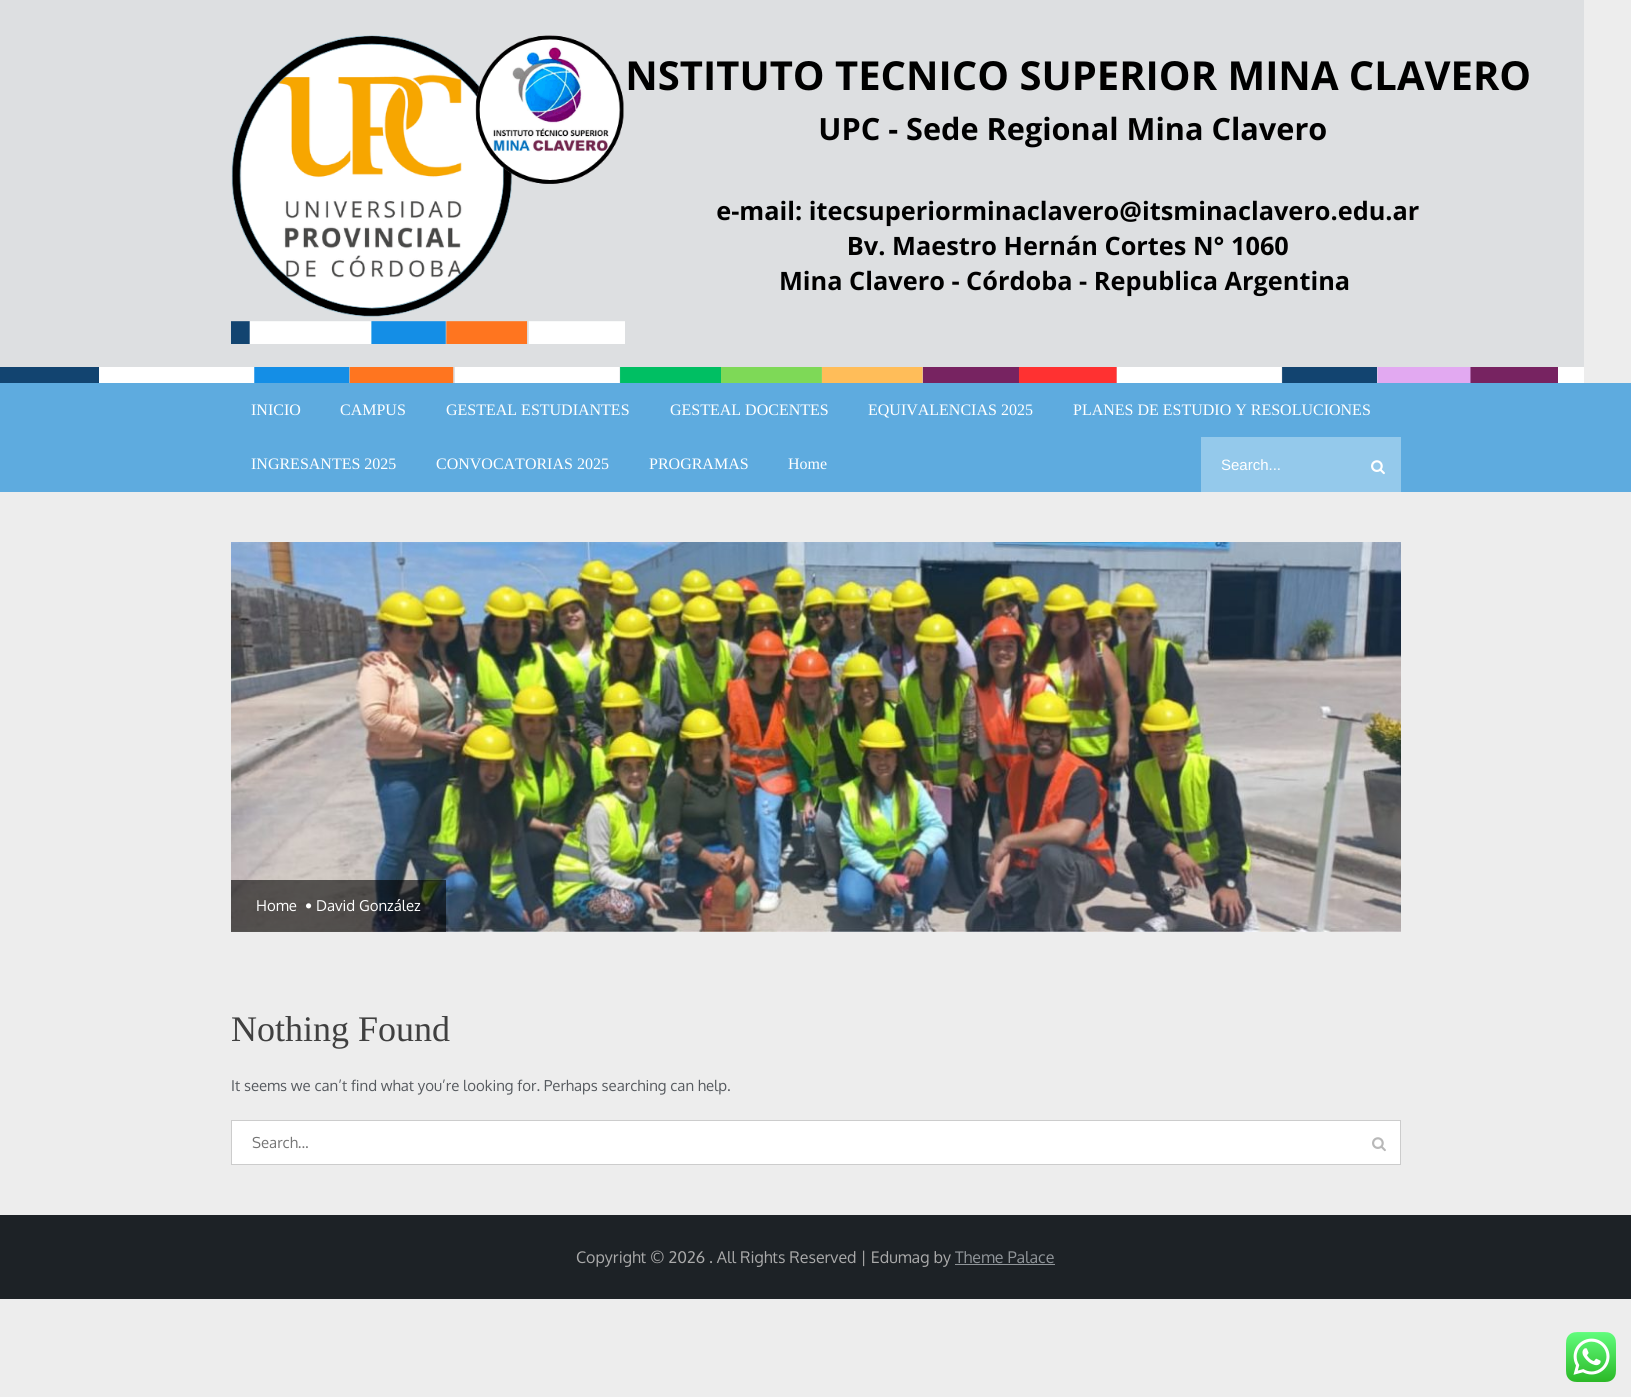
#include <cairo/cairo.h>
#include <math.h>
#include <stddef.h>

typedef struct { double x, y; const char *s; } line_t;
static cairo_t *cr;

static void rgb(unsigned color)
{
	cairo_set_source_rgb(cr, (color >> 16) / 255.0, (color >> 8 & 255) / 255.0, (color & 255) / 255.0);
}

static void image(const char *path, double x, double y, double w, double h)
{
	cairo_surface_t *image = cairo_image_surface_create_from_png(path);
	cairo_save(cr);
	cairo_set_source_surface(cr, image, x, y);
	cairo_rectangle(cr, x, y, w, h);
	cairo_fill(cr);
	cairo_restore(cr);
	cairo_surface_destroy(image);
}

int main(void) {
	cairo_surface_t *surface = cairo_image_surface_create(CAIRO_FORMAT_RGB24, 1631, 1397);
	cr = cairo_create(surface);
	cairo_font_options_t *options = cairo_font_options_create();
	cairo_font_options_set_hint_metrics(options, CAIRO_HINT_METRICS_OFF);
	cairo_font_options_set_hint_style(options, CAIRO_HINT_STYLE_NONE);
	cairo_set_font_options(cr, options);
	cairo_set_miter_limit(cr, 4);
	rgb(0xededed);
	cairo_paint(cr);
	image("img/1.png", 0, 0, 1584, 383);
	image("img/2.png", 231, 35, 394, 309);
	rgb(0x5eabdf);
	cairo_rectangle(cr, 0, 383, 1631, 109);
	cairo_fill(cr);
	rgb(0x94c9eb);
	cairo_rectangle(cr, 1201, 437, 200, 55);
	cairo_fill(cr);
	image("img/3.png", 1371, 460, 14, 15);
	image("img/4.png", 231, 542, 1170, 390);
	cairo_set_source_rgba(cr, 0, 0, 0, 0.6);
	cairo_rectangle(cr, 231, 880, 215, 52);
	cairo_fill(cr);
	image("img/5.png", 306, 903, 6, 6);
	rgb(0xffffff);
	cairo_rectangle(cr, 231.5, 1120.5, 1169, 44);
	cairo_fill_preserve(cr);
	rgb(0xcccccc);
	cairo_set_line_width(cr, 1);
	cairo_stroke(cr);
	image("img/6.png", 1372, 1137, 14, 15);
	rgb(0x1d2226);
	cairo_rectangle(cr, 0, 1215, 1631, 84);
	cairo_fill(cr);
	rgb(0x909599);
	cairo_rectangle(cr, 955, 1264, 100, 1);
	cairo_fill(cr);
	image("img/7.png", 1566, 1332, 50, 50);
	cairo_select_font_face(cr, "Liberation Serif", CAIRO_FONT_SLANT_NORMAL, CAIRO_FONT_WEIGHT_NORMAL);
	cairo_set_font_size(cr, 16);
	rgb(0xffffff);
	{
		static const line_t items[] = {
			{251, 415, "INICIO"},
			{340, 415, "CAMPUS"},
			{446, 415, "GESTEAL ESTUDIANTES"},
			{670, 415, "GESTEAL DOCENTES"},
			{868, 415, "EQUIVALENCIAS 2025"},
			{1073, 415, "PLANES DE ESTUDIO Y RESOLUCIONES"},
			{251, 469, "INGRESANTES 2025"},
			{436, 469, "CONVOCATORIAS 2025"},
			{649, 469, "PROGRAMAS"},
			{788, 469, "Home"},
		};
		for (size_t i = 0; i < sizeof items / sizeof *items; i++) {
			cairo_move_to(cr, items[i].x, items[i].y);
			cairo_show_text(cr, items[i].s);
		}
	}
	cairo_select_font_face(cr, "Liberation Sans", CAIRO_FONT_SLANT_NORMAL, CAIRO_FONT_WEIGHT_NORMAL);
	cairo_set_font_size(cr, 15);
	cairo_move_to(cr, 1221, 470);
	cairo_show_text(cr, "Search...");
	cairo_select_font_face(cr, "Oxygen", CAIRO_FONT_SLANT_NORMAL, CAIRO_FONT_WEIGHT_NORMAL);
	cairo_move_to(cr, 256, 911);
	cairo_show_text(cr, "Home");
	cairo_move_to(cr, 316, 911);
	cairo_show_text(cr, "David González");
	cairo_select_font_face(cr, "Liberation Serif", CAIRO_FONT_SLANT_NORMAL, CAIRO_FONT_WEIGHT_NORMAL);
	cairo_set_font_size(cr, 36);
	rgb(0x404040);
	cairo_move_to(cr, 231, 1041);
	cairo_show_text(cr, "Nothing Found");
	cairo_select_font_face(cr, "Oxygen", CAIRO_FONT_SLANT_NORMAL, CAIRO_FONT_WEIGHT_NORMAL);
	cairo_set_font_size(cr, 15);
	rgb(0x565a5f);
	cairo_move_to(cr, 231, 1091);
	cairo_show_text(cr, "It seems we can’t find what you’re looking for. Perhaps searching can help.");
	rgb(0x757575);
	cairo_move_to(cr, 252, 1148);
	cairo_show_text(cr, "Search...");
	cairo_set_font_size(cr, 16);
	rgb(0xaaaaaa);
	cairo_move_to(cr, 576, 1263);
	cairo_show_text(cr, "Copyright © 2026 . All Rights Reserved | Edumag by");
	rgb(0x909599);
	cairo_move_to(cr, 955, 1263);
	cairo_show_text(cr, "Theme Palace");
	cairo_surface_write_to_png(surface, "page.png");
	cairo_font_options_destroy(options);
	cairo_destroy(cr);
	cairo_surface_destroy(surface);
	return 0;
}
